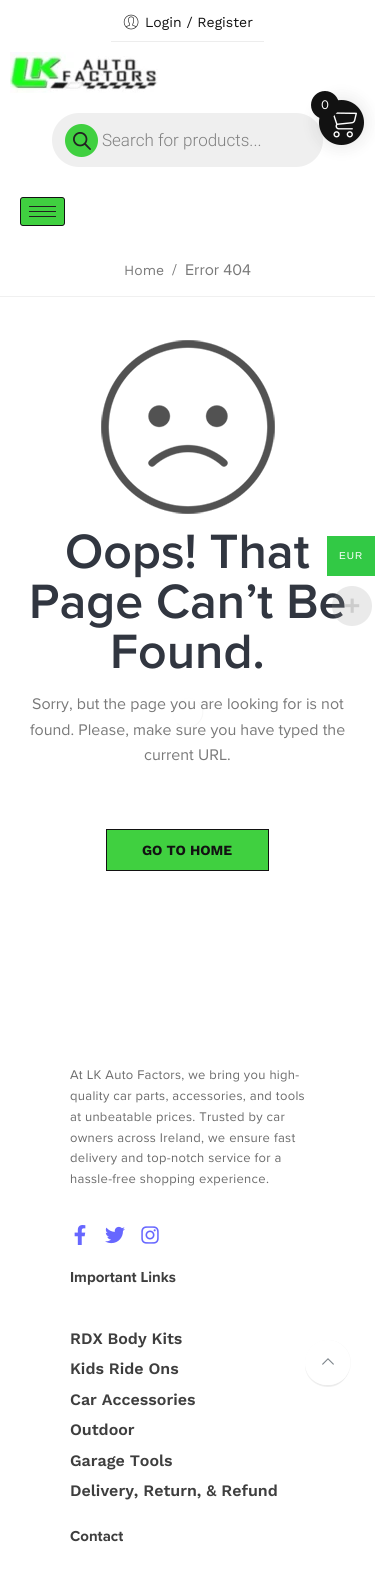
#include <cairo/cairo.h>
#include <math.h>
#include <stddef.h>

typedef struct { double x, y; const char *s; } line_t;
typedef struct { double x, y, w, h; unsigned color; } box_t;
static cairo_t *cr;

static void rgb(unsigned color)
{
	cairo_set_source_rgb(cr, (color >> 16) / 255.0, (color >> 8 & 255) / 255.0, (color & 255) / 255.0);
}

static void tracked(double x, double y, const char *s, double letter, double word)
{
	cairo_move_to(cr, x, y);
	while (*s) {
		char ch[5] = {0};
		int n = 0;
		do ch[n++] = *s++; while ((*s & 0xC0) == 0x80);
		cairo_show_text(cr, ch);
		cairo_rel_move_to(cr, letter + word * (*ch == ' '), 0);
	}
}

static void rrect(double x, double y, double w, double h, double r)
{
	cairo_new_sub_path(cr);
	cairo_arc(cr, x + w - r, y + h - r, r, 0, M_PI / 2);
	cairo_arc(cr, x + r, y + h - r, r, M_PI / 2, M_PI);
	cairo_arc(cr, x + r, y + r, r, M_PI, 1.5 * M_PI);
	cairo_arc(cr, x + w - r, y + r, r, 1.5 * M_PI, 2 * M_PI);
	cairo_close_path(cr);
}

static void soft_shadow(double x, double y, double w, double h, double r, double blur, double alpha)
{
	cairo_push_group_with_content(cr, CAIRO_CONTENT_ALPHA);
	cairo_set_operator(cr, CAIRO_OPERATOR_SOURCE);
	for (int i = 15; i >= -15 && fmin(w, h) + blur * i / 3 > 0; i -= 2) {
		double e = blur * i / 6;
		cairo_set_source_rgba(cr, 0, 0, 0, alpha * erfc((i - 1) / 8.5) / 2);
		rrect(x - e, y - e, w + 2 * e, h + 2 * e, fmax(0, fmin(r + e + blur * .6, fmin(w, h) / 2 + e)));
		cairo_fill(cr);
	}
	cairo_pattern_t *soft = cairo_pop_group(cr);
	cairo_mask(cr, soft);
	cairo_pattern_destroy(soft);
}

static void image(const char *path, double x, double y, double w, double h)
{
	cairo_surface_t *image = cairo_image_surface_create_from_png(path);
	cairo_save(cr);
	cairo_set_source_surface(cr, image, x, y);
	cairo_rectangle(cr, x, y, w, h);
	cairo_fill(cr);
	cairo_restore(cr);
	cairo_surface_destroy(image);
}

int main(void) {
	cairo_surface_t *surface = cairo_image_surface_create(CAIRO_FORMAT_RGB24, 375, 1585);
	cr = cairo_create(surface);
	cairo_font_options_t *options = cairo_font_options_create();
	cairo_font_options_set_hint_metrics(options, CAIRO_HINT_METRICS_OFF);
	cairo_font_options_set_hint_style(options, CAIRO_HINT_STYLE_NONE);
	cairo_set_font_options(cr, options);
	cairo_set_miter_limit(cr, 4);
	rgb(0xffffff);
	cairo_paint(cr);
	rgb(0xededed);
	cairo_rectangle(cr, 111, 41, 153, 1);
	cairo_fill(cr);
	image("img/1.png", 123, 14, 16, 16);
	image("img/2.png", 10, 52, 148, 41);
	rgb(0xefefef);
	rrect(52, 113, 271, 54, 27);
	cairo_fill(cr);
	rgb(0x40d040);
	cairo_arc(cr, 81.5, 140.5, 16.5, 0, 2 * M_PI);
	cairo_fill(cr);
	image("img/3.png", 73, 132, 18, 18);
	rrect(20.5, 197.5, 44, 28, 2.5);
	cairo_fill_preserve(cr);
	rgb(0x121212);
	cairo_set_line_width(cr, 1);
	cairo_stroke(cr);
	{
		static const box_t items[] = {
			{29, 206, 27, 1, 0x202020},
			{29, 211, 27, 1, 0x202020},
			{29, 216, 27, 1, 0x202020},
			{0, 296, 375, 1, 0xf0f0f0},
		};
		for (size_t i = 0; i < sizeof items / sizeof *items; i++) {
			rgb(items[i].color);
			cairo_rectangle(cr, items[i].x, items[i].y, items[i].w, items[i].h);
			cairo_fill(cr);
		}
	}
	rgb(0x121212);
	soft_shadow(317, 98, 49, 49, 24.5, 7.5, 0.1);
	rgb(0x121212);
	cairo_arc(cr, 341.5, 122.5, 22.5, 0, 2 * M_PI);
	cairo_fill(cr);
	image("img/4.png", 333, 112, 24, 26);
	cairo_arc(cr, 325, 105, 14, 0, 2 * M_PI);
	cairo_fill(cr);
	image("img/5.png", 101, 340, 174, 174);
	rgb(0x40d040);
	cairo_rectangle(cr, 106.5, 829.5, 162, 41);
	cairo_fill_preserve(cr);
	rgb(0x121212);
	cairo_stroke(cr);
	rgb(0x32c945);
	cairo_rectangle(cr, 327, 536, 48, 40);
	cairo_fill(cr);
	image("img/6.png", 74, 1225, 12, 20);
	image("img/7.png", 105, 1226, 20, 18);
	image("img/8.png", 141, 1226, 18, 18);
	cairo_arc(cr, 328, 1363, 22.75, 0, 2 * M_PI);
	rgb(0xf8f8f8);
	cairo_set_line_width(cr, 0.5);
	cairo_stroke(cr);
	cairo_set_source_rgba(cr, 0.071, 0.071, 0.071, 0.07);
	cairo_new_path(cr);
	cairo_move_to(cr, 350, 1364);
	cairo_curve_to(cr, 349, 1392, 306, 1392, 305, 1364);
	cairo_curve_to(cr, 304, 1386, 334, 1396, 346, 1377);
	cairo_curve_to(cr, 349, 1373, 350, 1368, 350, 1364);
	cairo_close_path(cr);
	cairo_fill(cr);
	rgb(0xffffff);
	cairo_arc(cr, 327.5, 1362.5, 22.5, 0, 2 * M_PI);
	cairo_fill(cr);
	image("img/9.png", 322, 1358, 12, 7);
	cairo_new_path(cr);
	cairo_move_to(cr, 198.5, 702.5);
	cairo_curve_to(cr, 212, 716, 191, 737, 177.5, 723.5);
	cairo_set_source_rgba(cr, 0.2, 0.2, 0.2, 0.04);
	cairo_set_line_width(cr, 1);
	cairo_stroke(cr);
	cairo_new_path(cr);
	cairo_move_to(cr, 177.5, 723.5);
	cairo_curve_to(cr, 164, 710, 185, 689, 198.5, 702.5);
	cairo_set_source_rgba(cr, 0.937, 0.937, 0.937, 0.04);
	cairo_stroke(cr);
	cairo_select_font_face(cr, "Work Sans", CAIRO_FONT_SLANT_NORMAL, CAIRO_FONT_WEIGHT_NORMAL);
	cairo_set_font_size(cr, 14);
	rgb(0x121212);
	cairo_move_to(cr, 145, 27);
	cairo_show_text(cr, "Login / Register");
	cairo_select_font_face(cr, "Roboto Light", CAIRO_FONT_SLANT_NORMAL, CAIRO_FONT_WEIGHT_NORMAL);
	cairo_set_font_size(cr, 17);
	rgb(0x818181);
	cairo_move_to(cr, 102, 146);
	cairo_show_text(cr, "Search for products...");
	cairo_select_font_face(cr, "Work Sans", CAIRO_FONT_SLANT_NORMAL, CAIRO_FONT_WEIGHT_NORMAL);
	cairo_set_font_size(cr, 14);
	rgb(0x797979);
	cairo_move_to(cr, 124, 275);
	cairo_show_text(cr, "Home");
	cairo_select_font_face(cr, "Proxima Nova", CAIRO_FONT_SLANT_NORMAL, CAIRO_FONT_WEIGHT_NORMAL);
	cairo_set_font_size(cr, 16);
	cairo_move_to(cr, 172, 275);
	cairo_show_text(cr, "/  Error 404");
	cairo_set_font_size(cr, 13);
	rgb(0xffffff);
	cairo_move_to(cr, 321, 109);
	cairo_show_text(cr, "0");
	cairo_select_font_face(cr, "Proxima Nova SemiBold", CAIRO_FONT_SLANT_NORMAL, CAIRO_FONT_WEIGHT_NORMAL);
	cairo_set_font_size(cr, 50);
	rgb(0x313640);
	{
		static const line_t items[] = {
			{65, 568, "Oops! That"},
			{29, 618, "Page Can’t Be"},
			{110, 668, "Found."},
		};
		for (size_t i = 0; i < sizeof items / sizeof *items; i++) {
			cairo_move_to(cr, items[i].x, items[i].y);
			cairo_show_text(cr, items[i].s);
		}
	}
	cairo_select_font_face(cr, "Proxima Nova", CAIRO_FONT_SLANT_NORMAL, CAIRO_FONT_WEIGHT_NORMAL);
	cairo_set_font_size(cr, 16);
	rgb(0x797979);
	{
		static const line_t items[] = {
			{32, 709, "Sorry, but the page you are looking for is not"},
			{30, 735, "found. Please, make sure you have typed the"},
			{144, 760, "current URL."},
		};
		for (size_t i = 0; i < sizeof items / sizeof *items; i++) {
			cairo_move_to(cr, items[i].x, items[i].y);
			cairo_show_text(cr, items[i].s);
		}
	}
	cairo_select_font_face(cr, "Work Sans", CAIRO_FONT_SLANT_NORMAL, CAIRO_FONT_WEIGHT_BOLD);
	cairo_set_font_size(cr, 14);
	rgb(0x121212);
	cairo_move_to(cr, 142, 855);
	cairo_show_text(cr, "GO TO HOME");
	cairo_select_font_face(cr, "Liberation Sans", CAIRO_FONT_SLANT_NORMAL, CAIRO_FONT_WEIGHT_NORMAL);
	cairo_set_font_size(cr, 10);
	rgb(0xffffff);
	tracked(339, 559, "EUR", 1, 0);
	cairo_set_source_rgba(cr, 0.6, 0.6, 0.6, 0.2);
	cairo_new_path(cr);
	cairo_arc(cr, 352, 606, 20, 0, 2 * M_PI);
	cairo_fill(cr);
	cairo_select_font_face(cr, "Liberation Sans", CAIRO_FONT_SLANT_NORMAL, CAIRO_FONT_WEIGHT_BOLD);
	cairo_set_font_size(cr, 28);
	rgb(0xcccccc);
	cairo_move_to(cr, 344, 615);
	cairo_show_text(cr, "+");
	cairo_select_font_face(cr, "Proxima Nova", CAIRO_FONT_SLANT_NORMAL, CAIRO_FONT_WEIGHT_NORMAL);
	cairo_set_font_size(cr, 13);
	rgb(0x6b6b6b);
	{
		static const line_t items[] = {
			{70, 1079, "At LK Auto Factors, we bring you high-"},
			{70, 1100, "quality car parts, accessories, and tools"},
			{70, 1121, "at unbeatable prices. Trusted by car"},
			{70, 1142, "owners across Ireland, we ensure fast"},
			{70, 1162, "delivery and top-notch service for a"},
			{70, 1183, "hassle-free shopping experience."},
		};
		for (size_t i = 0; i < sizeof items / sizeof *items; i++) {
			tracked(items[i].x, items[i].y, items[i].s, 0.3, 0);
		}
	}
	cairo_select_font_face(cr, "Proxima Nova", CAIRO_FONT_SLANT_NORMAL, CAIRO_FONT_WEIGHT_BOLD);
	cairo_set_font_size(cr, 15);
	rgb(0x3e3e3e);
	cairo_move_to(cr, 70, 1282);
	cairo_show_text(cr, "Important Links");
	cairo_select_font_face(cr, "Work Sans SemiBold", CAIRO_FONT_SLANT_NORMAL, CAIRO_FONT_WEIGHT_NORMAL);
	cairo_set_font_size(cr, 16);
	{
		static const line_t items[] = {
			{70, 1344, "RDX Body Kits"},
			{70, 1374, "Kids Ride Ons"},
			{70, 1405, "Car Accessories"},
			{70, 1435, "Outdoor"},
			{70, 1466, "Garage Tools"},
			{70, 1496, "Delivery, Return, & Refund"},
		};
		for (size_t i = 0; i < sizeof items / sizeof *items; i++) {
			cairo_move_to(cr, items[i].x, items[i].y);
			cairo_show_text(cr, items[i].s);
		}
	}
	cairo_select_font_face(cr, "Proxima Nova", CAIRO_FONT_SLANT_NORMAL, CAIRO_FONT_WEIGHT_BOLD);
	cairo_set_font_size(cr, 15);
	cairo_move_to(cr, 70, 1541);
	cairo_show_text(cr, "Contact");
	cairo_surface_write_to_png(surface, "page.png");
	cairo_font_options_destroy(options);
	cairo_destroy(cr);
	cairo_surface_destroy(surface);
	return 0;
}
